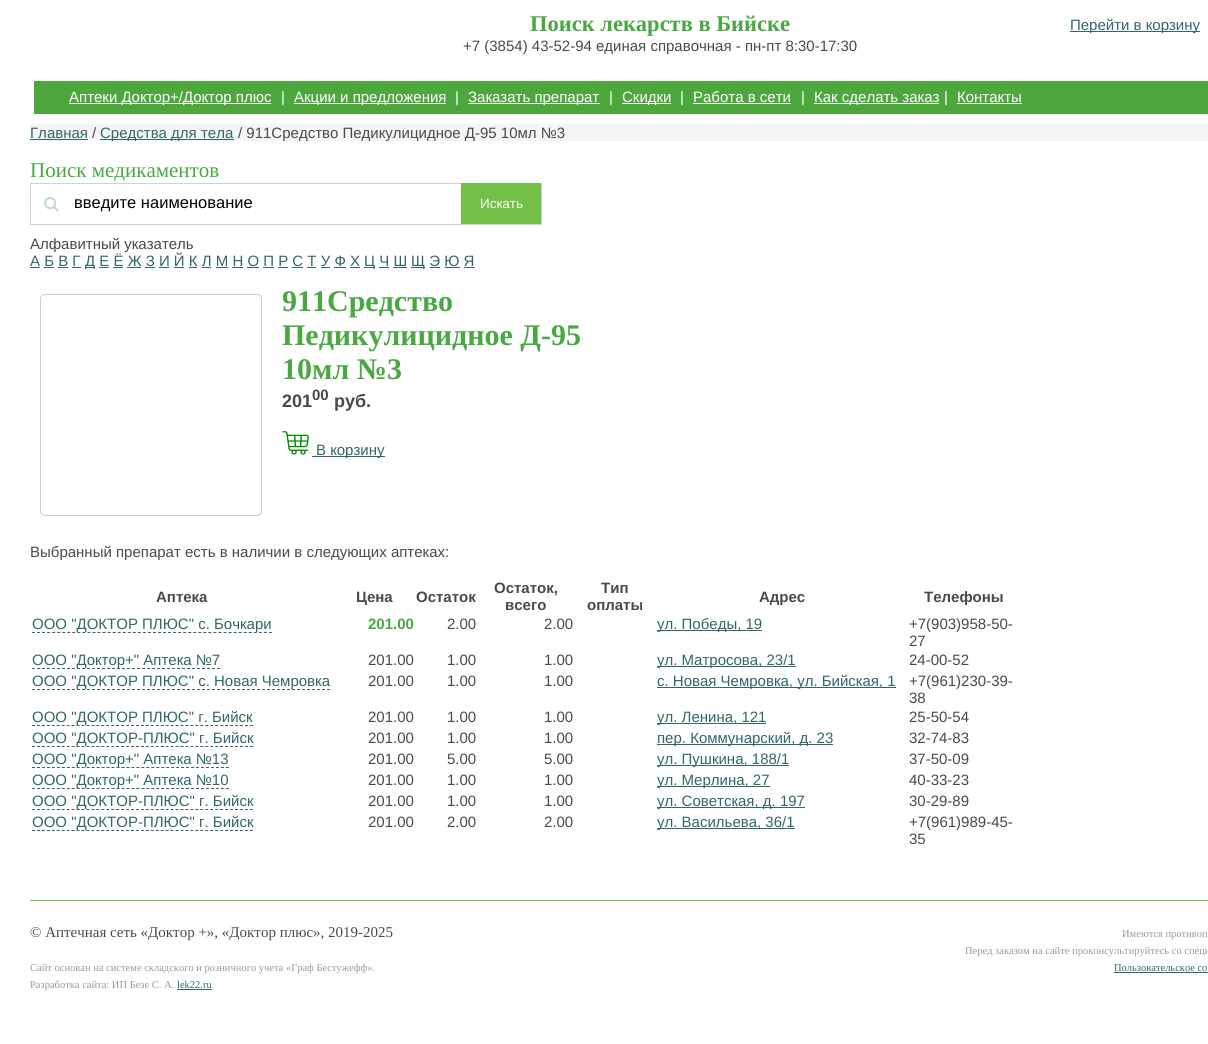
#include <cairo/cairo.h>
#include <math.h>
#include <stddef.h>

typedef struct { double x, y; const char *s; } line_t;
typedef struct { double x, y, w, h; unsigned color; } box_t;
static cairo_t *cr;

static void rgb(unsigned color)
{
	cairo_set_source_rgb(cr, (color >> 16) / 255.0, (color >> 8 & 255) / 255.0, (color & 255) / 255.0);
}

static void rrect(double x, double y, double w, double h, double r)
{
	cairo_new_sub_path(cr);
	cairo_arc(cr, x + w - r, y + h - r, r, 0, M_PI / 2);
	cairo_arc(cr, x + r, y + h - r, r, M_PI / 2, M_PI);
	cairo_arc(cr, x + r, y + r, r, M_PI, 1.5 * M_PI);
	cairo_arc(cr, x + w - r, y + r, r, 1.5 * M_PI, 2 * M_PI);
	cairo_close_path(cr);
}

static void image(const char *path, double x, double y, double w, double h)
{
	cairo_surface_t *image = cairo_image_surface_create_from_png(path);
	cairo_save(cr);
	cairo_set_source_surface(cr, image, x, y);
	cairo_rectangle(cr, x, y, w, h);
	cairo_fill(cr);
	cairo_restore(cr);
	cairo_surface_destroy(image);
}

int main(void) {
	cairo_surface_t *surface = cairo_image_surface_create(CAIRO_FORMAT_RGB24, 1208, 1044);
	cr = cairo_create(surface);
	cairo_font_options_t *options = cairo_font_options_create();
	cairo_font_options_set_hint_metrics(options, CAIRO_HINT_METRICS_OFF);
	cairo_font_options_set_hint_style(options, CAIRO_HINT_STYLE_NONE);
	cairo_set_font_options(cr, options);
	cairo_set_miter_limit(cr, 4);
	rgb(0xffffff);
	cairo_paint(cr);
	{
		static const box_t items[] = {
			{1070, 31, 130, 1, 0x336666},
			{34, 81, 1174, 33, 0x4ea73d},
			{69, 103, 202, 1, 0xffffff},
			{294, 103, 152, 1, 0xffffff},
			{468, 103, 132, 1, 0xffffff},
			{622, 103, 49, 1, 0xffffff},
			{693, 103, 98, 1, 0xffffff},
			{814, 103, 125, 1, 0xffffff},
			{957, 103, 65, 1, 0xffffff},
			{30, 124, 1178, 17, 0xf5f5f5},
			{30, 139, 58, 1, 0x336666},
			{100, 139, 134, 1, 0x336666},
		};
		for (size_t i = 0; i < sizeof items / sizeof *items; i++) {
			rgb(items[i].color);
			cairo_rectangle(cr, items[i].x, items[i].y, items[i].w, items[i].h);
			cairo_fill(cr);
		}
	}
	cairo_rectangle(cr, 30.5, 183.5, 511, 41);
	rgb(0xc3d8db);
	cairo_set_line_width(cr, 1);
	cairo_stroke(cr);
	image("img/1.png", 44, 197, 15, 15);
	{
		static const box_t items[] = {
			{461, 183, 80, 41, 0x73bf45},
			{30, 267, 10, 1, 0x336666},
			{85, 267, 10, 1, 0x336666},
			{364, 267, 11, 1, 0x336666},
			{411, 267, 14, 1, 0x336666},
			{44, 267, 10, 1, 0x336666},
			{58, 267, 10, 1, 0x336666},
			{72, 267, 9, 1, 0x336666},
			{99, 267, 10, 1, 0x336666},
			{113, 267, 10, 1, 0x336666},
			{127, 267, 14, 1, 0x336666},
			{145, 267, 10, 1, 0x336666},
			{159, 267, 10, 1, 0x336666},
			{174, 267, 10, 1, 0x336666},
			{189, 267, 8, 1, 0x336666},
			{202, 267, 9, 1, 0x336666},
			{216, 267, 12, 1, 0x336666},
			{232, 267, 11, 1, 0x336666},
			{247, 267, 12, 1, 0x336666},
			{263, 267, 11, 1, 0x336666},
			{278, 267, 10, 1, 0x336666},
			{292, 267, 11, 1, 0x336666},
			{307, 267, 9, 1, 0x336666},
			{321, 267, 9, 1, 0x336666},
			{334, 267, 12, 1, 0x336666},
			{350, 267, 10, 1, 0x336666},
			{379, 267, 10, 1, 0x336666},
			{393, 267, 14, 1, 0x336666},
			{430, 267, 10, 1, 0x336666},
			{445, 267, 15, 1, 0x336666},
			{464, 267, 11, 1, 0x336666},
		};
		for (size_t i = 0; i < sizeof items / sizeof *items; i++) {
			rgb(items[i].color);
			cairo_rectangle(cr, items[i].x, items[i].y, items[i].w, items[i].h);
			cairo_fill(cr);
		}
	}
	rrect(40.5, 294.5, 221, 221, 4.5);
	rgb(0xcccccc);
	cairo_stroke(cr);
	image("img/2.png", 282, 431, 27, 24);
	rgb(0x336666);
	cairo_rectangle(cr, 312, 456, 73, 1);
	cairo_fill(cr);
	cairo_new_path(cr);
	cairo_move_to(cr, 32, 632.5);
	cairo_line_to(cr, 272, 632.5);
	cairo_set_dash(cr, (double[]){3, 2.04}, 2, 0);
	cairo_stroke(cr);
	cairo_rectangle(cr, 657, 630, 105, 1);
	cairo_fill(cr);
	cairo_new_path(cr);
	cairo_move_to(cr, 32, 668.5);
	cairo_line_to(cr, 220, 668.5);
	cairo_set_dash(cr, (double[]){3, 2}, 2, 0);
	cairo_stroke(cr);
	cairo_rectangle(cr, 657, 666, 139, 1);
	cairo_fill(cr);
	cairo_new_path(cr);
	cairo_move_to(cr, 32, 689.5);
	cairo_line_to(cr, 330, 689.5);
	cairo_stroke(cr);
	cairo_rectangle(cr, 657, 687, 239, 1);
	cairo_fill(cr);
	cairo_new_path(cr);
	cairo_move_to(cr, 32, 725.5);
	cairo_line_to(cr, 253, 725.5);
	cairo_set_dash(cr, (double[]){3, 1.95}, 2, 0);
	cairo_stroke(cr);
	cairo_rectangle(cr, 657, 723, 109, 1);
	cairo_fill(cr);
	cairo_new_path(cr);
	cairo_move_to(cr, 32, 746.5);
	cairo_line_to(cr, 253, 746.5);
	cairo_stroke(cr);
	cairo_rectangle(cr, 657, 744, 176, 1);
	cairo_fill(cr);
	cairo_new_path(cr);
	cairo_move_to(cr, 32, 767.5);
	cairo_line_to(cr, 229, 767.5);
	cairo_set_dash(cr, (double[]){3, 1.97}, 2, 0);
	cairo_stroke(cr);
	cairo_rectangle(cr, 657, 765, 132, 1);
	cairo_fill(cr);
	cairo_new_path(cr);
	cairo_move_to(cr, 32, 788.5);
	cairo_line_to(cr, 229, 788.5);
	cairo_stroke(cr);
	cairo_rectangle(cr, 657, 786, 113, 1);
	cairo_fill(cr);
	cairo_new_path(cr);
	cairo_move_to(cr, 32, 809.5);
	cairo_line_to(cr, 253, 809.5);
	cairo_set_dash(cr, (double[]){3, 1.95}, 2, 0);
	cairo_stroke(cr);
	cairo_rectangle(cr, 657, 807, 148, 1);
	cairo_fill(cr);
	cairo_new_path(cr);
	cairo_move_to(cr, 32, 830.5);
	cairo_line_to(cr, 253, 830.5);
	cairo_stroke(cr);
	{
		static const box_t items[] = {
			{657, 828, 138, 1, 0x336666},
			{30, 900, 1178, 1, 0x73bf45},
			{177, 989, 35, 1, 0x336666},
			{1114, 972, 94, 1, 0x336666},
		};
		for (size_t i = 0; i < sizeof items / sizeof *items; i++) {
			rgb(items[i].color);
			cairo_rectangle(cr, items[i].x, items[i].y, items[i].w, items[i].h);
			cairo_fill(cr);
		}
	}
	cairo_select_font_face(cr, "Liberation Serif", CAIRO_FONT_SLANT_NORMAL, CAIRO_FONT_WEIGHT_BOLD);
	cairo_set_font_size(cr, 22.5);
	rgb(0x49a842);
	cairo_move_to(cr, 530, 31);
	cairo_show_text(cr, "Поиск лекарств в Бийске");
	cairo_select_font_face(cr, "Liberation Sans", CAIRO_FONT_SLANT_NORMAL, CAIRO_FONT_WEIGHT_NORMAL);
	cairo_set_font_size(cr, 15);
	rgb(0x494949);
	cairo_move_to(cr, 463, 51);
	cairo_show_text(cr, "+7 (3854) 43-52-94 единая справочная - пн-пт 8:30-17:30");
	rgb(0x336666);
	cairo_move_to(cr, 1070, 30);
	cairo_show_text(cr, "Перейти в корзину");
	rgb(0xffffff);
	{
		static const line_t items[] = {
			{69, 102, "Аптеки Доктор+/Доктор плюс"},
			{281, 102, "|"},
			{294, 102, "Акции и предложения"},
			{455, 102, "|"},
			{468, 102, "Заказать препарат"},
			{609, 102, "|"},
			{622, 102, "Скидки"},
			{680, 102, "|"},
			{693, 102, "Работа в сети"},
			{801, 102, "|"},
			{814, 102, "Как сделать заказ"},
			{944, 102, "|"},
			{957, 102, "Контакты"},
		};
		for (size_t i = 0; i < sizeof items / sizeof *items; i++) {
			cairo_move_to(cr, items[i].x, items[i].y);
			cairo_show_text(cr, items[i].s);
		}
	}
	rgb(0x336666);
	cairo_move_to(cr, 30, 138);
	cairo_show_text(cr, "Главная");
	rgb(0x494949);
	cairo_move_to(cr, 92, 138);
	cairo_show_text(cr, "/");
	rgb(0x336666);
	cairo_move_to(cr, 100, 138);
	cairo_show_text(cr, "Средства для тела");
	rgb(0x494949);
	cairo_move_to(cr, 238, 138);
	cairo_show_text(cr, "/ 911Средство Педикулицидное Д-95 10мл №3");
	cairo_select_font_face(cr, "Liberation Serif", CAIRO_FONT_SLANT_NORMAL, CAIRO_FONT_WEIGHT_NORMAL);
	cairo_set_font_size(cr, 21);
	rgb(0x49a842);
	cairo_move_to(cr, 30, 177);
	cairo_show_text(cr, "Поиск медикаментов");
	cairo_select_font_face(cr, "Liberation Sans", CAIRO_FONT_SLANT_NORMAL, CAIRO_FONT_WEIGHT_NORMAL);
	cairo_set_font_size(cr, 16.5);
	rgb(0x000000);
	cairo_move_to(cr, 74, 208);
	cairo_show_text(cr, "введите наименование");
	cairo_set_font_size(cr, 13.5);
	rgb(0xffffff);
	cairo_move_to(cr, 480, 208);
	cairo_show_text(cr, "Искать");
	cairo_set_font_size(cr, 15);
	rgb(0x494949);
	cairo_move_to(cr, 30, 249);
	cairo_show_text(cr, "Алфавитный указатель");
	rgb(0x336666);
	{
		static const line_t items[] = {
			{30, 266, "А Б В Г"},
			{85, 266, "Д Е Ё Ж З И Й К Л М Н О П Р С Т У Ф Х"},
			{364, 266, "Ц Ч Ш"},
			{411, 266, "Щ Э Ю Я"},
		};
		for (size_t i = 0; i < sizeof items / sizeof *items; i++) {
			cairo_move_to(cr, items[i].x, items[i].y);
			cairo_show_text(cr, items[i].s);
		}
	}
	cairo_select_font_face(cr, "Liberation Serif", CAIRO_FONT_SLANT_NORMAL, CAIRO_FONT_WEIGHT_BOLD);
	cairo_set_font_size(cr, 30);
	rgb(0x49a842);
	{
		static const line_t items[] = {
			{282, 311, "911Средство"},
			{282, 345, "Педикулицидное Д-95"},
			{282, 379, "10мл №3"},
		};
		for (size_t i = 0; i < sizeof items / sizeof *items; i++) {
			cairo_move_to(cr, items[i].x, items[i].y);
			cairo_show_text(cr, items[i].s);
		}
	}
	cairo_select_font_face(cr, "Liberation Sans", CAIRO_FONT_SLANT_NORMAL, CAIRO_FONT_WEIGHT_BOLD);
	cairo_set_font_size(cr, 18);
	rgb(0x494949);
	cairo_move_to(cr, 282, 407);
	cairo_show_text(cr, "201");
	cairo_set_font_size(cr, 15);
	cairo_move_to(cr, 312, 400);
	cairo_show_text(cr, "00");
	cairo_set_font_size(cr, 18);
	cairo_move_to(cr, 334, 407);
	cairo_show_text(cr, "руб.");
	cairo_select_font_face(cr, "Liberation Sans", CAIRO_FONT_SLANT_NORMAL, CAIRO_FONT_WEIGHT_NORMAL);
	cairo_set_font_size(cr, 15);
	rgb(0x336666);
	cairo_move_to(cr, 316, 455);
	cairo_show_text(cr, "В корзину");
	rgb(0x494949);
	cairo_move_to(cr, 30, 557);
	cairo_show_text(cr, "Выбранный препарат есть в наличии в следующих аптеках:");
	cairo_select_font_face(cr, "Liberation Sans", CAIRO_FONT_SLANT_NORMAL, CAIRO_FONT_WEIGHT_BOLD);
	{
		static const line_t items[] = {
			{156, 602, "Аптека"},
			{356, 602, "Цена"},
			{416, 602, "Остаток"},
			{494, 593, "Остаток,"},
			{505, 610, "всего"},
			{601, 593, "Тип"},
			{587, 610, "оплаты"},
			{759, 602, "Адрес"},
			{924, 602, "Телефоны"},
		};
		for (size_t i = 0; i < sizeof items / sizeof *items; i++) {
			cairo_move_to(cr, items[i].x, items[i].y);
			cairo_show_text(cr, items[i].s);
		}
	}
	cairo_select_font_face(cr, "Liberation Sans", CAIRO_FONT_SLANT_NORMAL, CAIRO_FONT_WEIGHT_NORMAL);
	rgb(0x336666);
	cairo_move_to(cr, 32, 629);
	cairo_show_text(cr, "ООО \"ДОКТОР ПЛЮС\" с. Бочкари");
	cairo_select_font_face(cr, "Liberation Sans", CAIRO_FONT_SLANT_NORMAL, CAIRO_FONT_WEIGHT_BOLD);
	rgb(0x49a842);
	cairo_move_to(cr, 368, 629);
	cairo_show_text(cr, "201.00");
	cairo_select_font_face(cr, "Liberation Sans", CAIRO_FONT_SLANT_NORMAL, CAIRO_FONT_WEIGHT_NORMAL);
	rgb(0x494949);
	cairo_move_to(cr, 447, 629);
	cairo_show_text(cr, "2.00");
	cairo_move_to(cr, 544, 629);
	cairo_show_text(cr, "2.00");
	rgb(0x336666);
	cairo_move_to(cr, 657, 629);
	cairo_show_text(cr, "ул. Победы, 19");
	rgb(0x494949);
	cairo_move_to(cr, 909, 629);
	cairo_show_text(cr, "+7(903)958-50-");
	cairo_move_to(cr, 909, 646);
	cairo_show_text(cr, "27");
	rgb(0x336666);
	cairo_move_to(cr, 32, 665);
	cairo_show_text(cr, "ООО \"Доктор+\" Аптека №7");
	rgb(0x494949);
	{
		static const line_t items[] = {
			{368, 665, "201.00"},
			{447, 665, "1.00"},
			{544, 665, "1.00"},
		};
		for (size_t i = 0; i < sizeof items / sizeof *items; i++) {
			cairo_move_to(cr, items[i].x, items[i].y);
			cairo_show_text(cr, items[i].s);
		}
	}
	rgb(0x336666);
	cairo_move_to(cr, 657, 665);
	cairo_show_text(cr, "ул. Матросова, 23/1");
	rgb(0x494949);
	cairo_move_to(cr, 909, 665);
	cairo_show_text(cr, "24-00-52");
	rgb(0x336666);
	cairo_move_to(cr, 32, 686);
	cairo_show_text(cr, "ООО \"ДОКТОР ПЛЮС\" с. Новая Чемровка");
	rgb(0x494949);
	{
		static const line_t items[] = {
			{368, 686, "201.00"},
			{447, 686, "1.00"},
			{544, 686, "1.00"},
		};
		for (size_t i = 0; i < sizeof items / sizeof *items; i++) {
			cairo_move_to(cr, items[i].x, items[i].y);
			cairo_show_text(cr, items[i].s);
		}
	}
	rgb(0x336666);
	cairo_move_to(cr, 657, 686);
	cairo_show_text(cr, "с. Новая Чемровка, ул. Бийская, 1");
	rgb(0x494949);
	cairo_move_to(cr, 909, 686);
	cairo_show_text(cr, "+7(961)230-39-");
	cairo_move_to(cr, 909, 703);
	cairo_show_text(cr, "38");
	rgb(0x336666);
	cairo_move_to(cr, 32, 722);
	cairo_show_text(cr, "ООО \"ДОКТОР ПЛЮС\" г. Бийск");
	rgb(0x494949);
	{
		static const line_t items[] = {
			{368, 722, "201.00"},
			{447, 722, "1.00"},
			{544, 722, "1.00"},
		};
		for (size_t i = 0; i < sizeof items / sizeof *items; i++) {
			cairo_move_to(cr, items[i].x, items[i].y);
			cairo_show_text(cr, items[i].s);
		}
	}
	rgb(0x336666);
	cairo_move_to(cr, 657, 722);
	cairo_show_text(cr, "ул. Ленина, 121");
	rgb(0x494949);
	cairo_move_to(cr, 909, 722);
	cairo_show_text(cr, "25-50-54");
	rgb(0x336666);
	cairo_move_to(cr, 32, 743);
	cairo_show_text(cr, "ООО \"ДОКТОР-ПЛЮС\" г. Бийск");
	rgb(0x494949);
	{
		static const line_t items[] = {
			{368, 743, "201.00"},
			{447, 743, "1.00"},
			{544, 743, "1.00"},
		};
		for (size_t i = 0; i < sizeof items / sizeof *items; i++) {
			cairo_move_to(cr, items[i].x, items[i].y);
			cairo_show_text(cr, items[i].s);
		}
	}
	rgb(0x336666);
	cairo_move_to(cr, 657, 743);
	cairo_show_text(cr, "пер. Коммунарский, д. 23");
	rgb(0x494949);
	cairo_move_to(cr, 909, 743);
	cairo_show_text(cr, "32-74-83");
	rgb(0x336666);
	cairo_move_to(cr, 32, 764);
	cairo_show_text(cr, "ООО \"Доктор+\" Аптека №13");
	rgb(0x494949);
	{
		static const line_t items[] = {
			{368, 764, "201.00"},
			{447, 764, "5.00"},
			{544, 764, "5.00"},
		};
		for (size_t i = 0; i < sizeof items / sizeof *items; i++) {
			cairo_move_to(cr, items[i].x, items[i].y);
			cairo_show_text(cr, items[i].s);
		}
	}
	rgb(0x336666);
	cairo_move_to(cr, 657, 764);
	cairo_show_text(cr, "ул. Пушкина, 188/1");
	rgb(0x494949);
	cairo_move_to(cr, 909, 764);
	cairo_show_text(cr, "37-50-09");
	rgb(0x336666);
	cairo_move_to(cr, 32, 785);
	cairo_show_text(cr, "ООО \"Доктор+\" Аптека №10");
	rgb(0x494949);
	{
		static const line_t items[] = {
			{368, 785, "201.00"},
			{447, 785, "1.00"},
			{544, 785, "1.00"},
		};
		for (size_t i = 0; i < sizeof items / sizeof *items; i++) {
			cairo_move_to(cr, items[i].x, items[i].y);
			cairo_show_text(cr, items[i].s);
		}
	}
	rgb(0x336666);
	cairo_move_to(cr, 657, 785);
	cairo_show_text(cr, "ул. Мерлина, 27");
	rgb(0x494949);
	cairo_move_to(cr, 909, 785);
	cairo_show_text(cr, "40-33-23");
	rgb(0x336666);
	cairo_move_to(cr, 32, 806);
	cairo_show_text(cr, "ООО \"ДОКТОР-ПЛЮС\" г. Бийск");
	rgb(0x494949);
	{
		static const line_t items[] = {
			{368, 806, "201.00"},
			{447, 806, "1.00"},
			{544, 806, "1.00"},
		};
		for (size_t i = 0; i < sizeof items / sizeof *items; i++) {
			cairo_move_to(cr, items[i].x, items[i].y);
			cairo_show_text(cr, items[i].s);
		}
	}
	rgb(0x336666);
	cairo_move_to(cr, 657, 806);
	cairo_show_text(cr, "ул. Советская, д. 197");
	rgb(0x494949);
	cairo_move_to(cr, 909, 806);
	cairo_show_text(cr, "30-29-89");
	rgb(0x336666);
	cairo_move_to(cr, 32, 827);
	cairo_show_text(cr, "ООО \"ДОКТОР-ПЛЮС\" г. Бийск");
	rgb(0x494949);
	{
		static const line_t items[] = {
			{368, 827, "201.00"},
			{447, 827, "2.00"},
			{544, 827, "2.00"},
		};
		for (size_t i = 0; i < sizeof items / sizeof *items; i++) {
			cairo_move_to(cr, items[i].x, items[i].y);
			cairo_show_text(cr, items[i].s);
		}
	}
	rgb(0x336666);
	cairo_move_to(cr, 657, 827);
	cairo_show_text(cr, "ул. Васильева, 36/1");
	rgb(0x494949);
	cairo_move_to(cr, 909, 827);
	cairo_show_text(cr, "+7(961)989-45-");
	cairo_move_to(cr, 909, 844);
	cairo_show_text(cr, "35");
	cairo_select_font_face(cr, "Liberation Serif", CAIRO_FONT_SLANT_NORMAL, CAIRO_FONT_WEIGHT_NORMAL);
	cairo_move_to(cr, 30, 937);
	cairo_show_text(cr, "© Аптечная сеть «Доктор +», «Доктор плюс», 2019-2025");
	cairo_set_font_size(cr, 10.5);
	rgb(0x999999);
	cairo_move_to(cr, 30, 971);
	cairo_show_text(cr, "Сайт основан на системе складского и розничного учета «Граф Бестужефф».");
	cairo_move_to(cr, 30, 988);
	cairo_show_text(cr, "Разработка сайта: ИП Безе С. А.");
	rgb(0x336666);
	cairo_move_to(cr, 177, 988);
	cairo_show_text(cr, "lek22.ru");
	rgb(0x999999);
	cairo_move_to(cr, 1122, 937);
	cairo_show_text(cr, "Имеются противоп");
	cairo_move_to(cr, 965, 954);
	cairo_show_text(cr, "Перед заказом на сайте проконсультируйтесь со специ");
	rgb(0x336666);
	cairo_move_to(cr, 1114, 971);
	cairo_show_text(cr, "Пользовательское со");
	cairo_surface_write_to_png(surface, "page.png");
	cairo_font_options_destroy(options);
	cairo_destroy(cr);
	cairo_surface_destroy(surface);
	return 0;
}
